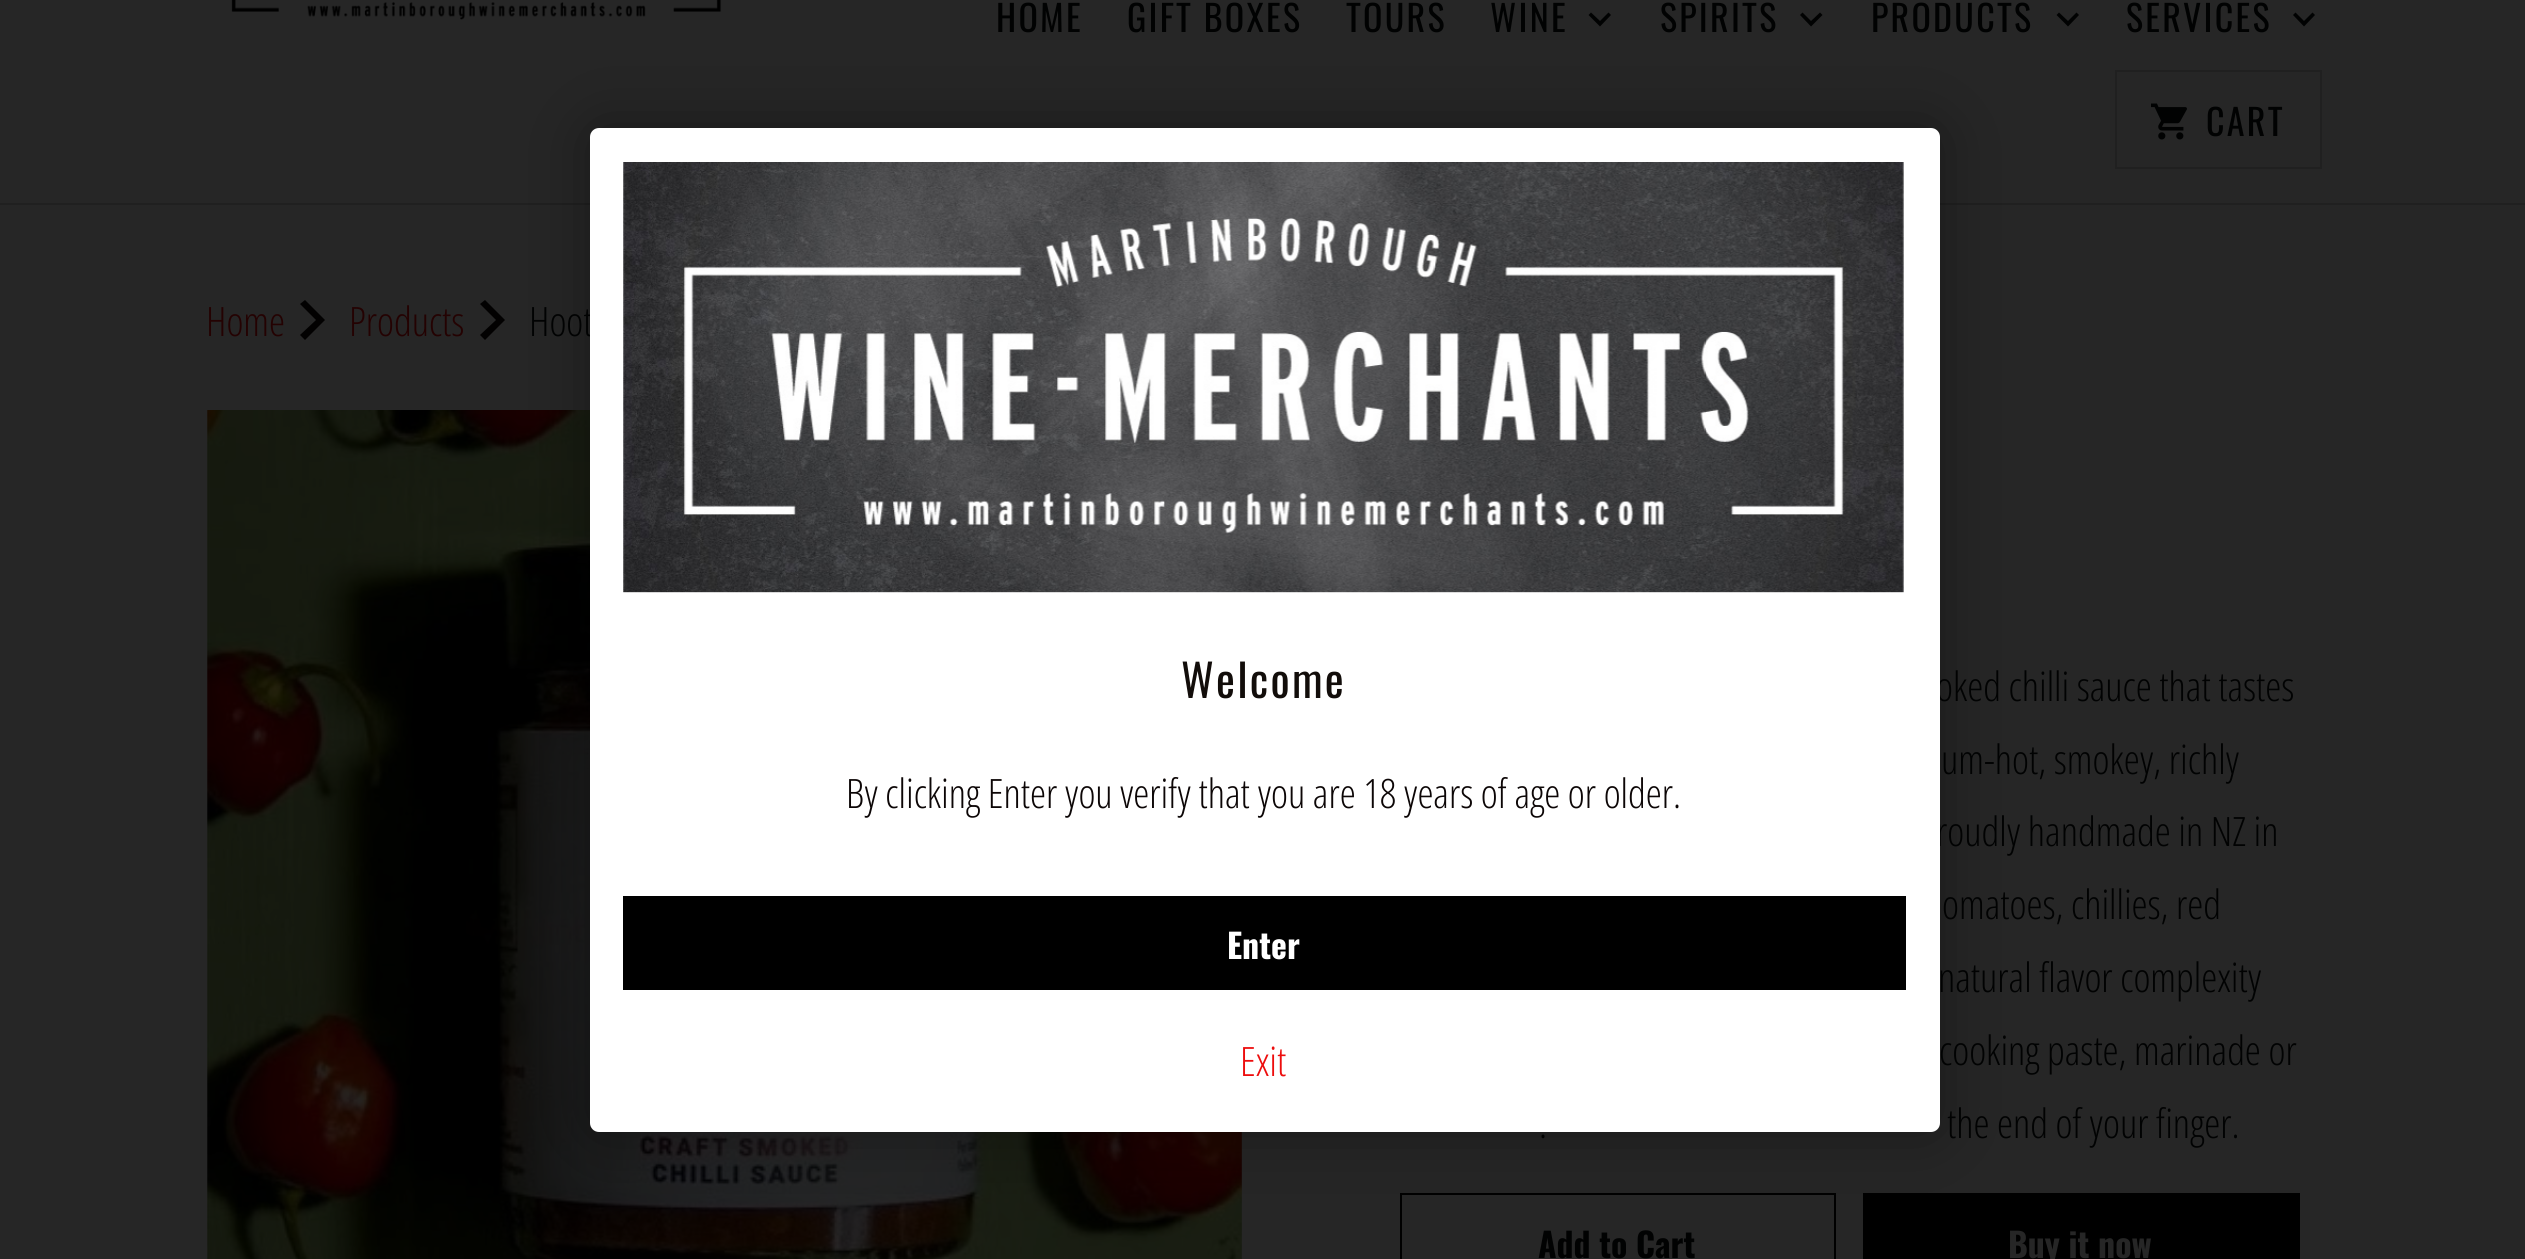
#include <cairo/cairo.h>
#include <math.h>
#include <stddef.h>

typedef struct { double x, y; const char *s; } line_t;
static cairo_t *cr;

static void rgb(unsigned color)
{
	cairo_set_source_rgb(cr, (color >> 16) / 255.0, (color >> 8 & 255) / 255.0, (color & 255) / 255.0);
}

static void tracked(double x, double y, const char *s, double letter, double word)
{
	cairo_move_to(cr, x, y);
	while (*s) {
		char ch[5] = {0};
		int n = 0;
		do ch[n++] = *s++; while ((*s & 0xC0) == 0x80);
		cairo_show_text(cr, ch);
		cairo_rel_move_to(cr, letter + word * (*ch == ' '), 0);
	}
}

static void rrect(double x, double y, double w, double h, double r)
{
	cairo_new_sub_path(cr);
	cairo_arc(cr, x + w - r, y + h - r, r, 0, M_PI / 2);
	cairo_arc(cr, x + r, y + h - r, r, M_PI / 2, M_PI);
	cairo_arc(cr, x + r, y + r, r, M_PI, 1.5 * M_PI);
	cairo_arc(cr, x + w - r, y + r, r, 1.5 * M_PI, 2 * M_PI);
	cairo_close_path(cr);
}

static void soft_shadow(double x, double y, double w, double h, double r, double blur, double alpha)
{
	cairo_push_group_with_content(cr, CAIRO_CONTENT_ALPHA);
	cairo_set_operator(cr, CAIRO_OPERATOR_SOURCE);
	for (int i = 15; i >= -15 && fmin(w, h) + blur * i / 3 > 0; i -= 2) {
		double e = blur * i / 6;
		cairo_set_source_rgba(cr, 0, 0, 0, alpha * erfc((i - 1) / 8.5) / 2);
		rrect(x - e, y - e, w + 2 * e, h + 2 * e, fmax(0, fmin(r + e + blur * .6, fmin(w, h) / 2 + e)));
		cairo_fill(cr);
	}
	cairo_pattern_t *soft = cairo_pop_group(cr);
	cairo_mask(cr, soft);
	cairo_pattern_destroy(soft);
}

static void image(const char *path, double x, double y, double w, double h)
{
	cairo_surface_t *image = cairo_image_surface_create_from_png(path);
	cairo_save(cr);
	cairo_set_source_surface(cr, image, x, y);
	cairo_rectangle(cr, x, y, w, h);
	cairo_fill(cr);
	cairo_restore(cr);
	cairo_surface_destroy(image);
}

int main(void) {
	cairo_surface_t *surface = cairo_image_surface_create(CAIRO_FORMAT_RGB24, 2525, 1259);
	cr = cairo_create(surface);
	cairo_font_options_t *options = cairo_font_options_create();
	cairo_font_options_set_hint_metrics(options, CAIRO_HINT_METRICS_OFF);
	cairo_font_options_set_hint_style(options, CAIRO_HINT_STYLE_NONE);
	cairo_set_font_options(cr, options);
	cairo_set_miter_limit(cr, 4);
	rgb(0x262626);
	cairo_paint(cr);
	rgb(0x202020);
	cairo_rectangle(cr, 0, 203, 2525, 2);
	cairo_fill(cr);
	image("img/1.png", 231, 0, 491, 20);
	rgb(0x010202);
	cairo_new_path(cr);
	cairo_move_to(cr, 1608.5, 12.5);
	cairo_line_to(cr, 1600, 21);
	cairo_line_to(cr, 1591, 12.5);
	cairo_line_to(cr, 1588.5, 15);
	cairo_line_to(cr, 1600, 26.5);
	cairo_line_to(cr, 1611, 15);
	cairo_close_path(cr);
	cairo_fill(cr);
	cairo_new_path(cr);
	cairo_move_to(cr, 1820, 12.5);
	cairo_line_to(cr, 1811, 21);
	cairo_line_to(cr, 1802.5, 12.5);
	cairo_line_to(cr, 1800, 15);
	cairo_line_to(cr, 1811, 26.5);
	cairo_line_to(cr, 1822.5, 15);
	cairo_close_path(cr);
	cairo_fill(cr);
	cairo_new_path(cr);
	cairo_move_to(cr, 2076.5, 12.5);
	cairo_line_to(cr, 2068, 21);
	cairo_line_to(cr, 2059, 12.5);
	cairo_line_to(cr, 2056.5, 15);
	cairo_line_to(cr, 2068, 26.5);
	cairo_line_to(cr, 2079, 15);
	cairo_close_path(cr);
	cairo_fill(cr);
	cairo_new_path(cr);
	cairo_move_to(cr, 2312.5, 12.5);
	cairo_line_to(cr, 2304, 21);
	cairo_line_to(cr, 2295.5, 12.5);
	cairo_line_to(cr, 2293, 15);
	cairo_line_to(cr, 2304, 26.5);
	cairo_line_to(cr, 2315, 15);
	cairo_close_path(cr);
	cairo_fill(cr);
	cairo_rectangle(cr, 2116, 71, 205, 97);
	rgb(0x202020);
	cairo_stroke(cr);
	image("img/2.png", 2151, 103, 36, 37);
	rgb(0x020101);
	cairo_new_path(cr);
	cairo_move_to(cr, 305, 300);
	cairo_line_to(cr, 300, 304);
	cairo_line_to(cr, 316, 320);
	cairo_line_to(cr, 300, 335);
	cairo_line_to(cr, 305, 340);
	cairo_line_to(cr, 325, 320);
	cairo_close_path(cr);
	cairo_fill(cr);
	cairo_new_path(cr);
	cairo_move_to(cr, 485, 300);
	cairo_line_to(cr, 480, 304);
	cairo_line_to(cr, 496, 320);
	cairo_line_to(cr, 480, 335);
	cairo_line_to(cr, 485, 340);
	cairo_line_to(cr, 505, 320);
	cairo_close_path(cr);
	cairo_fill(cr);
	image("img/4.png", 1241, 1132, 1, 127);
	image("img/3.png", 207, 410, 1035, 849);
	cairo_rectangle(cr, 1401, 1194, 434, 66);
	rgb(0x000000);
	cairo_stroke(cr);
	cairo_rectangle(cr, 1863, 1193, 437, 66);
	cairo_fill(cr);
	rgb(0x000000);
	soft_shadow(590, 128, 1350, 1004, 9, 34, 0.35);
	cairo_select_font_face(cr, "Oswald", CAIRO_FONT_SLANT_NORMAL, CAIRO_FONT_WEIGHT_NORMAL);
	cairo_set_font_size(cr, 36);
	rgb(0x010202);
	{
		static const line_t items[] = {
			{996, 32, "HOME"},
			{1127, 32, "GIFT BOXES"},
			{1346, 32, "TOURS"},
			{1490, 32, "WINE"},
			{1660, 32, "SPIRITS"},
			{1871, 32, "PRODUCTS"},
			{2126, 32, "SERVICES"},
			{2206, 136, "CART"},
		};
		for (size_t i = 0; i < sizeof items / sizeof *items; i++) {
			tracked(items[i].x, items[i].y, items[i].s, 2.25, 0);
		}
	}
	cairo_select_font_face(cr, "Open Sans Condensed Light", CAIRO_FONT_SLANT_NORMAL, CAIRO_FONT_WEIGHT_NORMAL);
	cairo_set_font_size(cr, 40.5);
	rgb(0x240202);
	cairo_move_to(cr, 206, 336);
	cairo_show_text(cr, "Home");
	cairo_move_to(cr, 349, 336);
	cairo_show_text(cr, "Products");
	rgb(0x010202);
	{
		static const line_t items[] = {
			{529, 336, "Hoot"},
			{1936, 701, "oked chilli sauce that tastes"},
			{1941, 774, "um-hot, smokey, richly"},
			{1936, 846, "roudly handmade in NZ in"},
			{1942, 919, "omatoes, chillies, red"},
			{1938, 992, "natural flavor complexity"},
			{1939, 1065, "cooking paste, marinade or"},
			{1539, 1138, "."},
			{1947, 1138, "the end of your finger."},
		};
		for (size_t i = 0; i < sizeof items / sizeof *items; i++) {
			cairo_move_to(cr, items[i].x, items[i].y);
			cairo_show_text(cr, items[i].s);
		}
	}
	cairo_select_font_face(cr, "Oswald", CAIRO_FONT_SLANT_NORMAL, CAIRO_FONT_WEIGHT_BOLD);
	cairo_set_font_size(cr, 33.75);
	cairo_move_to(cr, 1538, 1258);
	cairo_show_text(cr, "Add to Cart");
	rgb(0x262626);
	cairo_move_to(cr, 2008, 1258);
	cairo_show_text(cr, "Buy it now");
	rgb(0xffffff);
	rrect(590, 128, 1350, 1004, 9);
	cairo_fill(cr);
	image("img/5.png", 623, 162, 1281, 431);
	cairo_select_font_face(cr, "Oswald", CAIRO_FONT_SLANT_NORMAL, CAIRO_FONT_WEIGHT_NORMAL);
	cairo_set_font_size(cr, 45);
	rgb(0x120d0a);
	tracked(1181, 698, "Welcome", 2.25, 0);
	cairo_select_font_face(cr, "Open Sans Condensed Light", CAIRO_FONT_SLANT_NORMAL, CAIRO_FONT_WEIGHT_NORMAL);
	cairo_set_font_size(cr, 40.5);
	rgb(0x0c0606);
	cairo_move_to(cr, 846, 808);
	cairo_show_text(cr, "By clicking Enter you verify that you are 18 years of age or older.");
	rgb(0x000000);
	cairo_rectangle(cr, 623, 896, 1283, 94);
	cairo_fill(cr);
	cairo_select_font_face(cr, "Oswald", CAIRO_FONT_SLANT_NORMAL, CAIRO_FONT_WEIGHT_BOLD);
	cairo_set_font_size(cr, 33.75);
	rgb(0xffffff);
	cairo_move_to(cr, 1227, 959);
	cairo_show_text(cr, "Enter");
	cairo_select_font_face(cr, "Open Sans Condensed Light", CAIRO_FONT_SLANT_NORMAL, CAIRO_FONT_WEIGHT_NORMAL);
	cairo_set_font_size(cr, 40.5);
	rgb(0xed0d0d);
	cairo_move_to(cr, 1240, 1076);
	cairo_show_text(cr, "Exit");
	cairo_surface_write_to_png(surface, "page.png");
	cairo_font_options_destroy(options);
	cairo_destroy(cr);
	cairo_surface_destroy(surface);
	return 0;
}
